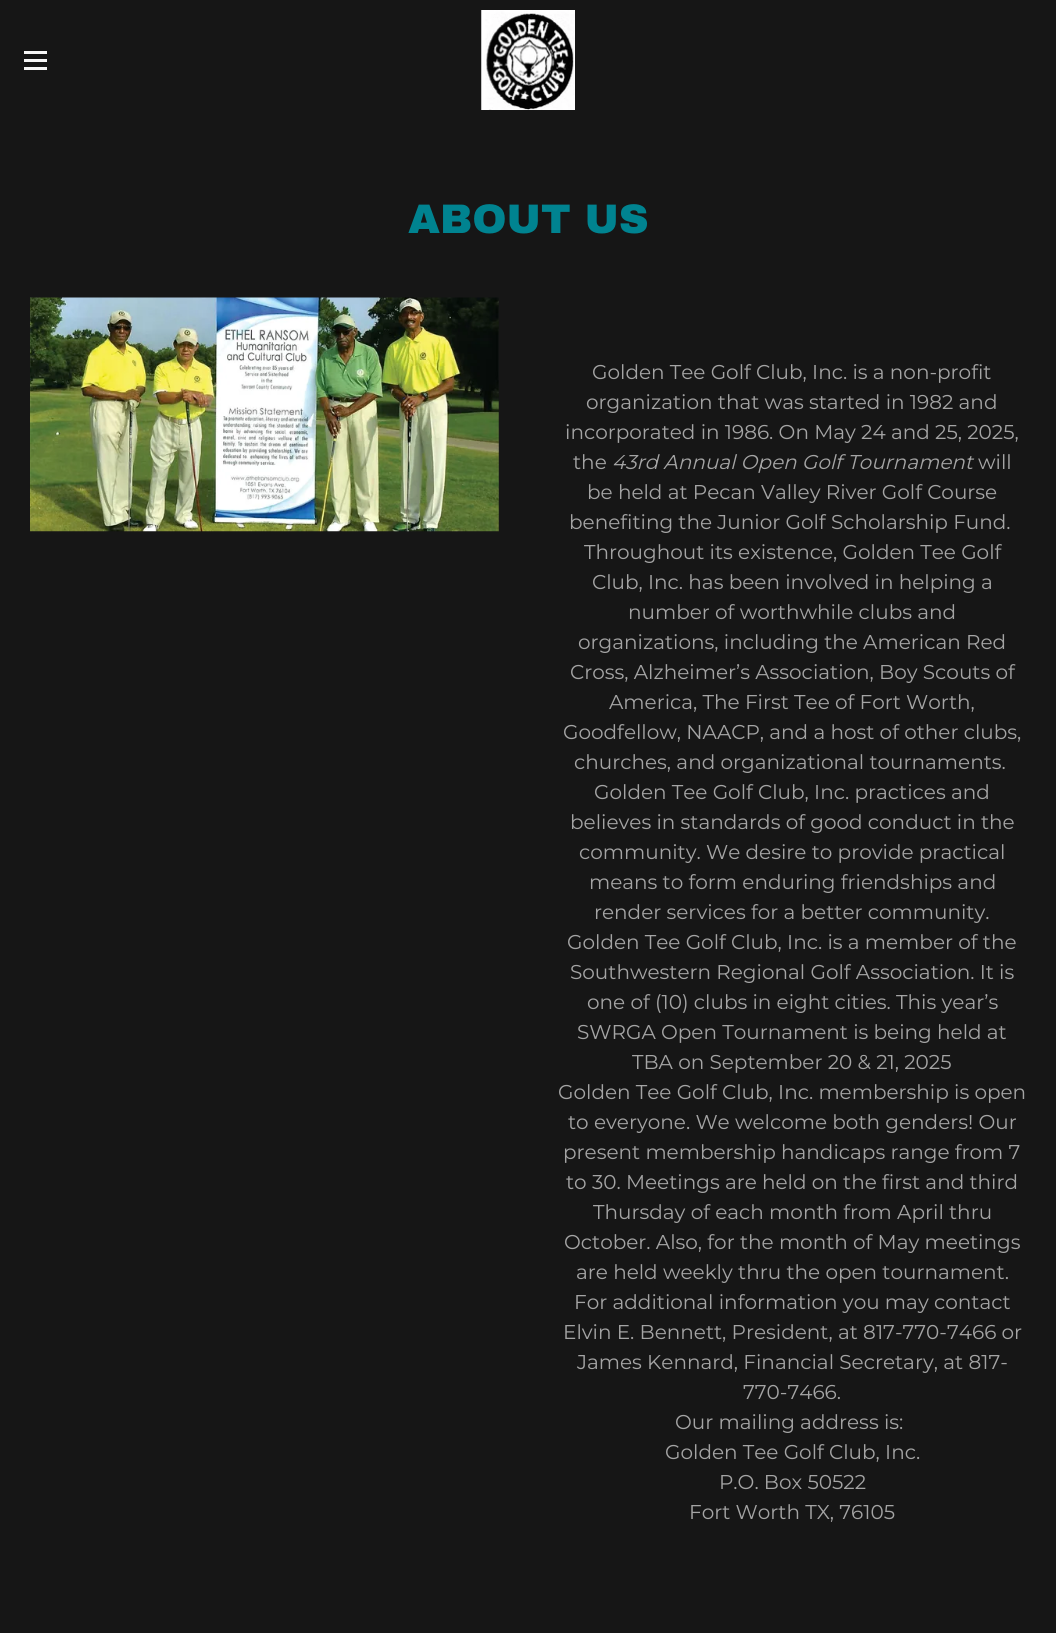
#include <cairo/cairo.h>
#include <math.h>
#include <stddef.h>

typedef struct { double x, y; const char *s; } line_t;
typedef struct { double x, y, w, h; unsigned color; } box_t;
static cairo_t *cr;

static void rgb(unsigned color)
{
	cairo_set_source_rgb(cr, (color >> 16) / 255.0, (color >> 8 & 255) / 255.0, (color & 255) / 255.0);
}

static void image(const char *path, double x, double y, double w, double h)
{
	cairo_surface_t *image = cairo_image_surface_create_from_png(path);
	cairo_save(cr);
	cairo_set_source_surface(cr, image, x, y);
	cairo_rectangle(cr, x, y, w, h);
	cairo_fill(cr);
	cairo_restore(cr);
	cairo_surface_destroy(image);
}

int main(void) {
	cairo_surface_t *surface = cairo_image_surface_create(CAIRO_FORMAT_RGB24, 1056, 1633);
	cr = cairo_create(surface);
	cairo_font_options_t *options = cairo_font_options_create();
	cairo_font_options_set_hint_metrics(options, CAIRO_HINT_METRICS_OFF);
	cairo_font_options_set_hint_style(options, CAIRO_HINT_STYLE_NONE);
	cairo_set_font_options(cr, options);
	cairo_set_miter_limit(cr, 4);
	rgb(0x161616);
	cairo_paint(cr);
	{
		static const box_t items[] = {
			{24, 51, 23, 3, 0xf7f7f7},
			{24, 59, 23, 3, 0xf7f7f7},
			{24, 67, 23, 3, 0xf7f7f7},
		};
		for (size_t i = 0; i < sizeof items / sizeof *items; i++) {
			rgb(items[i].color);
			cairo_rectangle(cr, items[i].x, items[i].y, items[i].w, items[i].h);
			cairo_fill(cr);
		}
	}
	image("img/1.png", 481, 10, 94, 100);
	image("img/2.png", 30, 297, 469, 235);
	cairo_select_font_face(cr, "Archivo Black Black", CAIRO_FONT_SLANT_NORMAL, CAIRO_FONT_WEIGHT_NORMAL);
	cairo_set_font_size(cr, 41.25);
	rgb(0x008390);
	cairo_move_to(cr, 408, 233);
	cairo_show_text(cr, "ABOUT US");
	cairo_select_font_face(cr, "Montserrat", CAIRO_FONT_SLANT_NORMAL, CAIRO_FONT_WEIGHT_NORMAL);
	cairo_set_font_size(cr, 20);
	rgb(0xa4a4a4);
	{
		static const line_t items[] = {
			{592, 379, "Golden Tee Golf Club, Inc. is a non-profit"},
			{586, 409, "organization that was started in 1982 and"},
			{565, 439, "incorporated in 1986. On May 24 and 25, 2025,"},
			{573, 469, "the"},
		};
		for (size_t i = 0; i < sizeof items / sizeof *items; i++) {
			cairo_move_to(cr, items[i].x, items[i].y);
			cairo_show_text(cr, items[i].s);
		}
	}
	cairo_select_font_face(cr, "Montserrat", CAIRO_FONT_SLANT_ITALIC, CAIRO_FONT_WEIGHT_NORMAL);
	cairo_move_to(cr, 612, 469);
	cairo_show_text(cr, "43rd Annual Open Golf Tournament");
	cairo_select_font_face(cr, "Montserrat", CAIRO_FONT_SLANT_NORMAL, CAIRO_FONT_WEIGHT_NORMAL);
	{
		static const line_t items[] = {
			{978, 469, "will"},
			{587, 499, "be held at Pecan Valley River Golf Course"},
			{569, 529, "benefiting the Junior Golf Scholarship Fund."},
			{584, 559, "Throughout its existence, Golden Tee Golf"},
			{592, 589, "Club, Inc. has been involved in helping a"},
			{628, 619, "number of worthwhile clubs and"},
			{578, 649, "organizations, including the American Red"},
			{570, 679, "Cross, Alzheimer’s Association, Boy Scouts of"},
			{609, 709, "America, The First Tee of Fort Worth,"},
			{563, 739, "Goodfellow, NAACP, and a host of other clubs,"},
			{574, 769, "churches, and organizational tournaments."},
			{594, 799, "Golden Tee Golf Club, Inc. practices and"},
			{570, 829, "believes in standards of good conduct in the"},
			{579, 859, "community. We desire to provide practical"},
			{589, 889, "means to form enduring friendships and"},
			{594, 919, "render services for a better community."},
			{567, 949, "Golden Tee Golf Club, Inc. is a member of the"},
			{570, 979, "Southwestern Regional Golf Association. It is"},
			{587, 1009, "one of (10) clubs in eight cities. This year’s"},
			{577, 1039, "SWRGA Open Tournament is being held at"},
			{632, 1069, "TBA on September 20 & 21, 2025"},
			{558, 1099, "Golden Tee Golf Club, Inc. membership is open"},
			{568, 1129, "to everyone. We welcome both genders! Our"},
			{563, 1159, "present membership handicaps range from 7"},
			{566, 1189, "to 30. Meetings are held on the first and third"},
			{593, 1219, "Thursday of each month from April thru"},
			{564, 1249, "October. Also, for the month of May meetings"},
			{576, 1279, "are held weekly thru the open tournament."},
			{574, 1309, "For additional information you may contact"},
			{563, 1339, "Elvin E. Bennett, President, at 817-770-7466 or"},
			{577, 1369, "James Kennard, Financial Secretary, at 817-"},
			{743, 1399, "770-7466."},
			{675, 1429, "Our mailing address is:"},
			{665, 1459, "Golden Tee Golf Club, Inc."},
			{719, 1489, "P.O. Box 50522"},
			{689, 1519, "Fort Worth TX, 76105"},
		};
		for (size_t i = 0; i < sizeof items / sizeof *items; i++) {
			cairo_move_to(cr, items[i].x, items[i].y);
			cairo_show_text(cr, items[i].s);
		}
	}
	cairo_surface_write_to_png(surface, "page.png");
	cairo_font_options_destroy(options);
	cairo_destroy(cr);
	cairo_surface_destroy(surface);
	return 0;
}
